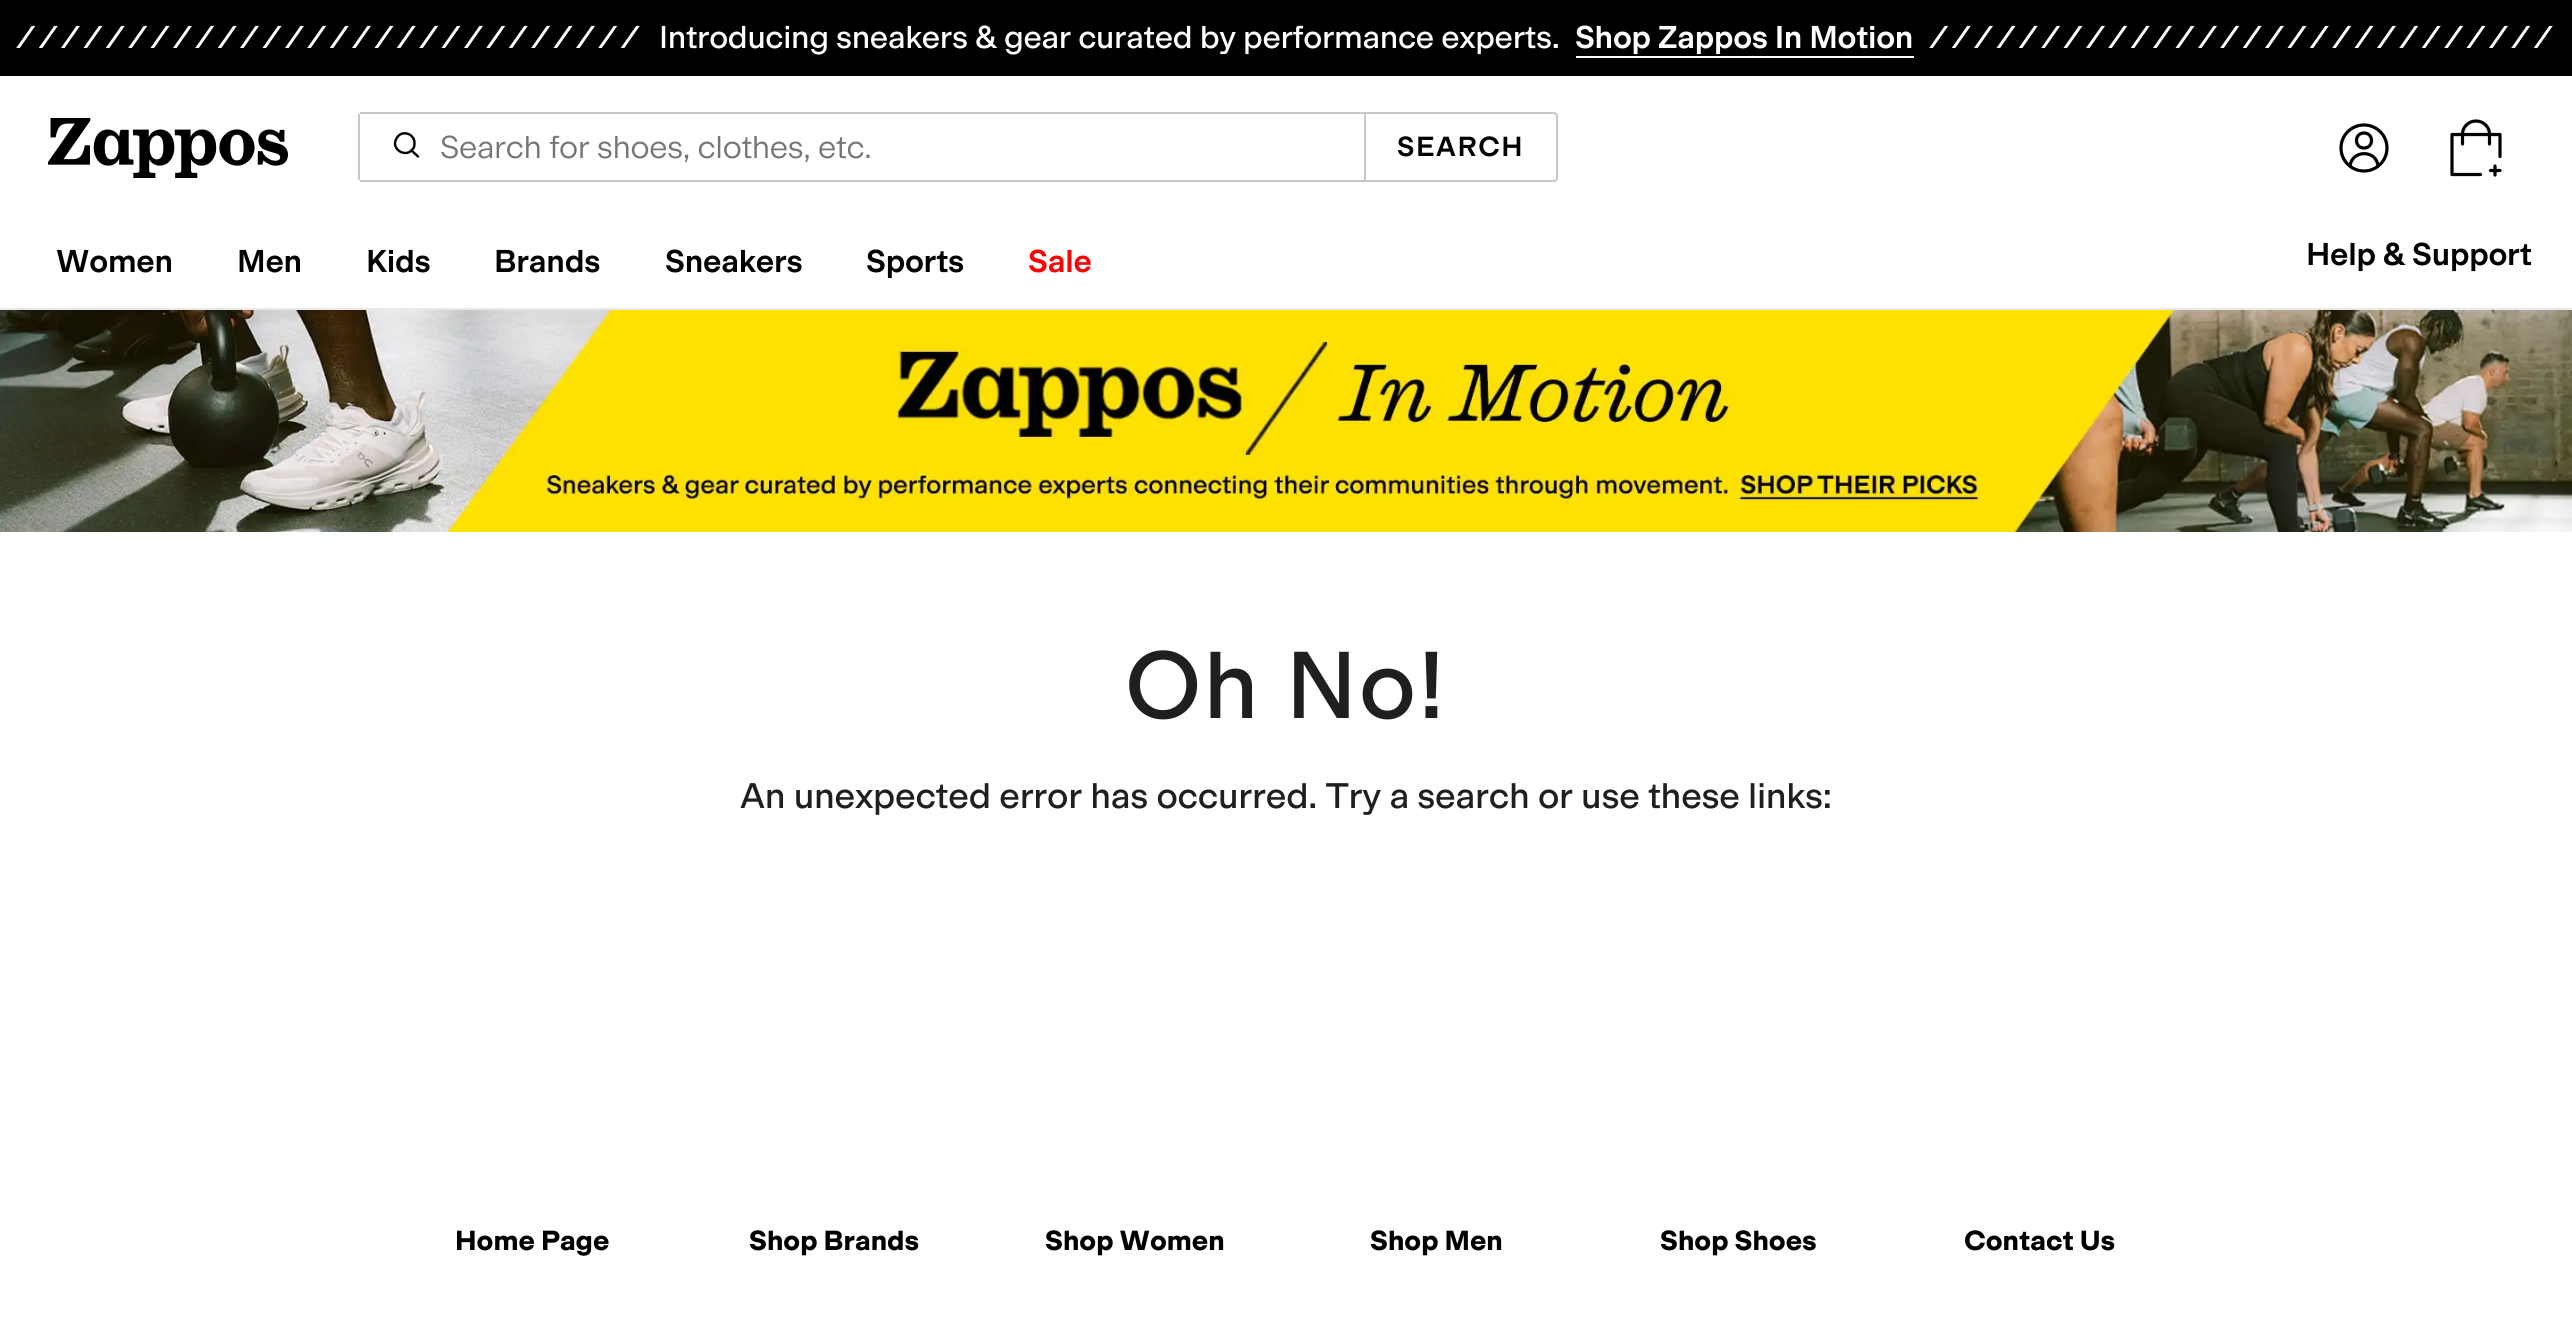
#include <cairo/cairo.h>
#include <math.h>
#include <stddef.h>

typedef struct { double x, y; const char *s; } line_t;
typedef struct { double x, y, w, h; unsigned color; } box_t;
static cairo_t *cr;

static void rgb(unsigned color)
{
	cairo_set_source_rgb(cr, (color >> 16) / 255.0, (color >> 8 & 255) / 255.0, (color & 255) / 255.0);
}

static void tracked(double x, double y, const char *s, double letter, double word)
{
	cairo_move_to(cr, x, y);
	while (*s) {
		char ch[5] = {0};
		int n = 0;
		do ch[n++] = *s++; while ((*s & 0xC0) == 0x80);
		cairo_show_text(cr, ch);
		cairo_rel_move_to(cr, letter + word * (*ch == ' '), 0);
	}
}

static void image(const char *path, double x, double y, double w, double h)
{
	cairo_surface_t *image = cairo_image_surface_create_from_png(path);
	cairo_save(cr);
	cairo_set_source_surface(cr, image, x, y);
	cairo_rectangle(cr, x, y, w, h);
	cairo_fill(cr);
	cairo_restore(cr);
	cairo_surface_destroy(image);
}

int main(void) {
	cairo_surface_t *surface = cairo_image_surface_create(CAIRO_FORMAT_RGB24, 2572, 1342);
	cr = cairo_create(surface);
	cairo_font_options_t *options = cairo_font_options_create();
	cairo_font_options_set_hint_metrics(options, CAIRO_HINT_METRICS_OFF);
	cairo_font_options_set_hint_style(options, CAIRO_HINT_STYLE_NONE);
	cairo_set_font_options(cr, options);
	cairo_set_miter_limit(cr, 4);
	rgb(0xffffff);
	cairo_paint(cr);
	{
		static const box_t items[] = {
			{0, 0, 2572, 76, 0x000000},
			{1576, 56, 338, 2, 0xffffff},
			{0, 308, 2572, 2, 0xe9e9e9},
		};
		for (size_t i = 0; i < sizeof items / sizeof *items; i++) {
			rgb(items[i].color);
			cairo_rectangle(cr, items[i].x, items[i].y, items[i].w, items[i].h);
			cairo_fill(cr);
		}
	}
	image("img/1.png", 48, 118, 240, 60);
	cairo_new_path(cr);
	cairo_move_to(cr, 396.5, 138.5);
	cairo_curve_to(cr, 390, 149, 406.5, 159.5, 413.5, 148);
	cairo_curve_to(cr, 414.5, 146.5, 414.5, 144.5, 414.5, 142.5);
	cairo_curve_to(cr, 414, 133, 401, 129.5, 396.5, 138.5);
	rgb(0x000000);
	cairo_set_line_width(cr, 2.4);
	cairo_set_line_cap(cr, CAIRO_LINE_CAP_ROUND);
	cairo_set_line_join(cr, CAIRO_LINE_JOIN_ROUND);
	cairo_stroke(cr);
	cairo_new_path(cr);
	cairo_move_to(cr, 411.5, 150.5);
	cairo_line_to(cr, 418, 156.5);
	cairo_set_line_join(cr, CAIRO_LINE_JOIN_MITER);
	cairo_stroke(cr);
	{
		static const box_t items[] = {
			{360, 112, 1004, 2, 0xc9c9c9},
			{360, 180, 1004, 2, 0xc9c9c9},
			{358, 114, 2, 66, 0xc9c9c9},
		};
		for (size_t i = 0; i < sizeof items / sizeof *items; i++) {
			rgb(items[i].color);
			cairo_rectangle(cr, items[i].x, items[i].y, items[i].w, items[i].h);
			cairo_fill(cr);
		}
	}
	cairo_new_path(cr);
	cairo_move_to(cr, 1365, 113);
	cairo_line_to(cr, 1554, 113);
	cairo_curve_to(cr, 1555.5, 113, 1557, 114.5, 1557, 116);
	cairo_line_to(cr, 1557, 178);
	cairo_curve_to(cr, 1557, 179.5, 1555.5, 181, 1554, 181);
	cairo_line_to(cr, 1365, 181);
	cairo_close_path(cr);
	cairo_set_line_width(cr, 2);
	cairo_set_line_cap(cr, CAIRO_LINE_CAP_BUTT);
	cairo_stroke(cr);
	cairo_new_path(cr);
	cairo_move_to(cr, 2364, 148);
	cairo_curve_to(cr, 2354, 148, 2354, 133, 2364, 133);
	cairo_curve_to(cr, 2374, 133, 2374, 148, 2364, 148);
	cairo_move_to(cr, 2350, 166);
	cairo_curve_to(cr, 2352, 149.5, 2376.5, 149.5, 2378, 166);
	rgb(0x000000);
	cairo_set_line_width(cr, 3.2);
	cairo_set_line_cap(cr, CAIRO_LINE_CAP_ROUND);
	cairo_set_line_join(cr, CAIRO_LINE_JOIN_ROUND);
	cairo_stroke(cr);
	cairo_arc(cr, 2364, 148, 23, 0, 2 * M_PI);
	cairo_set_line_cap(cr, CAIRO_LINE_CAP_BUTT);
	cairo_set_line_join(cr, CAIRO_LINE_JOIN_MITER);
	cairo_stroke(cr);
	cairo_new_path(cr);
	cairo_move_to(cr, 2489.5, 144);
	cairo_line_to(cr, 2489.5, 134);
	cairo_curve_to(cr, 2489.5, 127, 2483.5, 121, 2476, 121);
	cairo_curve_to(cr, 2468.5, 121, 2462.5, 127, 2462.5, 134);
	cairo_line_to(cr, 2462.5, 144);
	cairo_move_to(cr, 2490.5, 170.5);
	cairo_line_to(cr, 2500, 170.5);
	cairo_move_to(cr, 2495, 166);
	cairo_line_to(cr, 2495, 175);
	cairo_move_to(cr, 2500, 156.5);
	cairo_line_to(cr, 2500, 134.5);
	cairo_line_to(cr, 2452, 134.5);
	cairo_line_to(cr, 2452, 174.5);
	cairo_line_to(cr, 2480.5, 174.5);
	cairo_set_line_cap(cr, CAIRO_LINE_CAP_ROUND);
	cairo_set_line_join(cr, CAIRO_LINE_JOIN_ROUND);
	cairo_stroke(cr);
	image("img/2.png", 0, 310, 2572, 222);
	cairo_select_font_face(cr, "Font", CAIRO_FONT_SLANT_NORMAL, CAIRO_FONT_WEIGHT_NORMAL);
	cairo_set_font_size(cr, 32);
	rgb(0xffffff);
	tracked(16, 48, "////////////////////////////", 2.9, 0);
	tracked(659, 48, "Introducing sneakers & gear curated by performance experts.", -0.32, 0);
	cairo_select_font_face(cr, "Font Medium", CAIRO_FONT_SLANT_NORMAL, CAIRO_FONT_WEIGHT_NORMAL);
	tracked(1575, 48, "Shop Zappos In Motion", -0.32, 0);
	cairo_select_font_face(cr, "Font", CAIRO_FONT_SLANT_NORMAL, CAIRO_FONT_WEIGHT_NORMAL);
	tracked(1929, 48, "////////////////////////////", 2.9, 0);
	cairo_select_font_face(cr, "Font Light", CAIRO_FONT_SLANT_NORMAL, CAIRO_FONT_WEIGHT_NORMAL);
	rgb(0x757575);
	tracked(440, 158, "Search for shoes, clothes, etc.", -0.32, 0);
	cairo_select_font_face(cr, "Font Medium", CAIRO_FONT_SLANT_NORMAL, CAIRO_FONT_WEIGHT_NORMAL);
	cairo_set_font_size(cr, 28);
	rgb(0x000000);
	tracked(1397, 156, "SEARCH", 1.5, 0);
	cairo_set_font_size(cr, 32);
	{
		static const line_t items[] = {
			{56, 272, "Women"},
			{237, 272, "Men"},
			{366, 272, "Kids"},
			{494, 272, "Brands"},
			{665, 272, "Sneakers"},
			{866, 272, "Sports"},
		};
		for (size_t i = 0; i < sizeof items / sizeof *items; i++) {
			tracked(items[i].x, items[i].y, items[i].s, -0.25, 0);
		}
	}
	rgb(0xff0000);
	tracked(1028, 272, "Sale", -0.25, 0);
	rgb(0x000000);
	tracked(2306, 265, "Help & Support", -0.25, 0);
	cairo_select_font_face(cr, "Font", CAIRO_FONT_SLANT_NORMAL, CAIRO_FONT_WEIGHT_NORMAL);
	cairo_set_font_size(cr, 96);
	rgb(0x1f1f1f);
	tracked(1125, 718, "Oh No!", 2, 0);
	cairo_set_font_size(cr, 36);
	tracked(740, 808, "An unexpected error has occurred. Try a search or use these links:", -0.25, 0);
	cairo_select_font_face(cr, "Font", CAIRO_FONT_SLANT_NORMAL, CAIRO_FONT_WEIGHT_BOLD);
	cairo_set_font_size(cr, 28);
	rgb(0x000000);
	{
		static const line_t items[] = {
			{455, 1250, "Home Page"},
			{749, 1250, "Shop Brands"},
			{1045, 1250, "Shop Women"},
			{1370, 1250, "Shop Men"},
			{1660, 1250, "Shop Shoes"},
			{1964, 1250, "Contact Us"},
		};
		for (size_t i = 0; i < sizeof items / sizeof *items; i++) {
			cairo_move_to(cr, items[i].x, items[i].y);
			cairo_show_text(cr, items[i].s);
		}
	}
	cairo_surface_write_to_png(surface, "page.png");
	cairo_font_options_destroy(options);
	cairo_destroy(cr);
	cairo_surface_destroy(surface);
	return 0;
}
